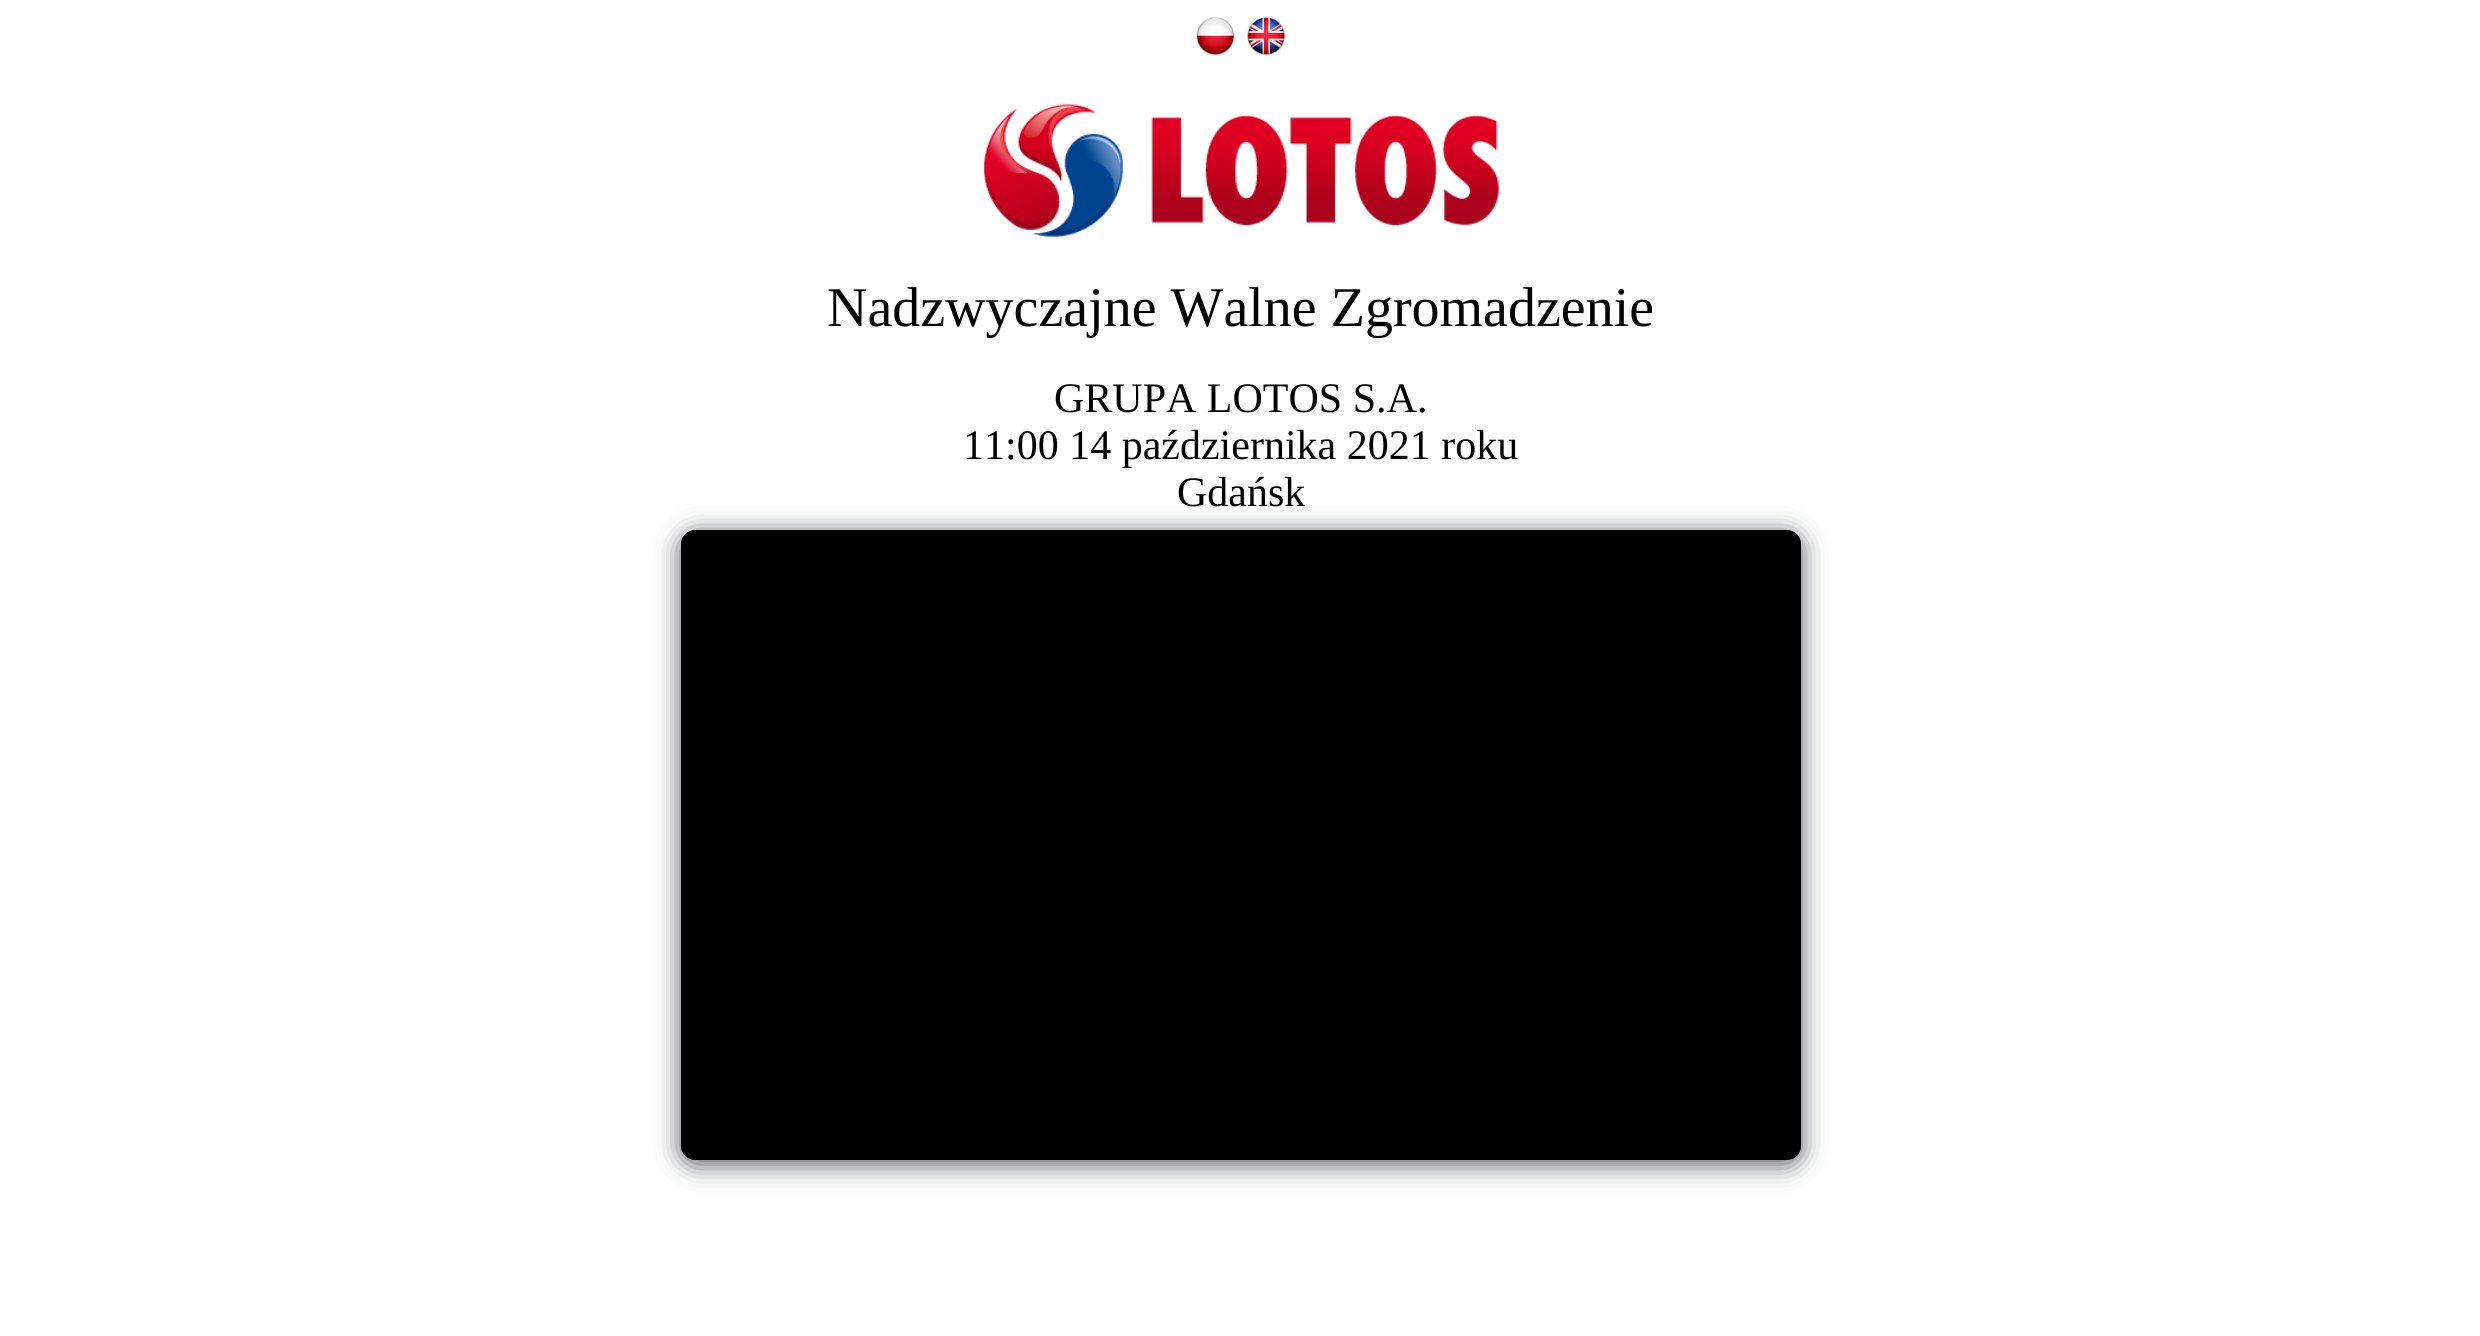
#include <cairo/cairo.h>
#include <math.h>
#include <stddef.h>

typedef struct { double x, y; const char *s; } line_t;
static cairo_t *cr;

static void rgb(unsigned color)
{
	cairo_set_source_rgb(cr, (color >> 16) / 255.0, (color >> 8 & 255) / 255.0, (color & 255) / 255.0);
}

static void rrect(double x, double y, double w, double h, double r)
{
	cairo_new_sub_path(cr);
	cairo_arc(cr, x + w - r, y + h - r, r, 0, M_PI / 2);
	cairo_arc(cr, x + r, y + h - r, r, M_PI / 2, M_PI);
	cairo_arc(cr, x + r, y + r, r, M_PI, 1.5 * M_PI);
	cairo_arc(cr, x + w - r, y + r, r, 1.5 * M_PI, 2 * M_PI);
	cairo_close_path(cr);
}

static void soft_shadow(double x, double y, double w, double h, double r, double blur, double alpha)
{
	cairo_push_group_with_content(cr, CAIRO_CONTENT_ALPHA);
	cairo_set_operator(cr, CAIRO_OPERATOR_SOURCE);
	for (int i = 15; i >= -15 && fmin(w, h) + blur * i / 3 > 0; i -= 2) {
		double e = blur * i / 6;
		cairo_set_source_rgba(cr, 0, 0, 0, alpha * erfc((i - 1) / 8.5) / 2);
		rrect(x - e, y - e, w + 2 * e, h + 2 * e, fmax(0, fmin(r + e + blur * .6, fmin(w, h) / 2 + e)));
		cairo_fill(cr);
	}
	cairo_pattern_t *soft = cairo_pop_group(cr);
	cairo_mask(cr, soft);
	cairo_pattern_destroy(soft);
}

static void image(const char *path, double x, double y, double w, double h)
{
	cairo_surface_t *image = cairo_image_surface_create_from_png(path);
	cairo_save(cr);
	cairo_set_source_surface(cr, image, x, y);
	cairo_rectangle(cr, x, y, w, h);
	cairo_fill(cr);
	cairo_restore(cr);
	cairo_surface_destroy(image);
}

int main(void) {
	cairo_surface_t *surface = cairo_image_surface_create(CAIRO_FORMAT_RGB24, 2480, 1336);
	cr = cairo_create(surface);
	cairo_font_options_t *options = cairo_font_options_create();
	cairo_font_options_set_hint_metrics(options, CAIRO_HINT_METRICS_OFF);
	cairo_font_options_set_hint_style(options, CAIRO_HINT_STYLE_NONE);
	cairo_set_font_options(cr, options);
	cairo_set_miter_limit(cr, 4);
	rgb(0xffffff);
	cairo_paint(cr);
	image("img/1.png", 1196, 17, 39, 39);
	image("img/2.png", 1247, 17, 39, 39);
	image("img/3.png", 984, 104, 515, 133);
	rgb(0x161920);
	soft_shadow(681, 534, 1120, 630, 14, 13, 0.73);
	rgb(0x000000);
	rrect(681, 530, 1120, 630, 14);
	cairo_fill(cr);
	cairo_select_font_face(cr, "Liberation Serif", CAIRO_FONT_SLANT_NORMAL, CAIRO_FONT_WEIGHT_NORMAL);
	cairo_set_font_size(cr, 56);
	cairo_move_to(cr, 827, 326);
	cairo_show_text(cr, "Nadzwyczajne Walne Zgromadzenie");
	cairo_set_font_size(cr, 42);
	{
		static const line_t items[] = {
			{1054, 412, "GRUPA LOTOS S.A."},
			{963, 459, "11:00 14 października 2021 roku"},
			{1177, 506, "Gdańsk"},
		};
		for (size_t i = 0; i < sizeof items / sizeof *items; i++) {
			cairo_move_to(cr, items[i].x, items[i].y);
			cairo_show_text(cr, items[i].s);
		}
	}
	cairo_surface_write_to_png(surface, "page.png");
	cairo_font_options_destroy(options);
	cairo_destroy(cr);
	cairo_surface_destroy(surface);
	return 0;
}
